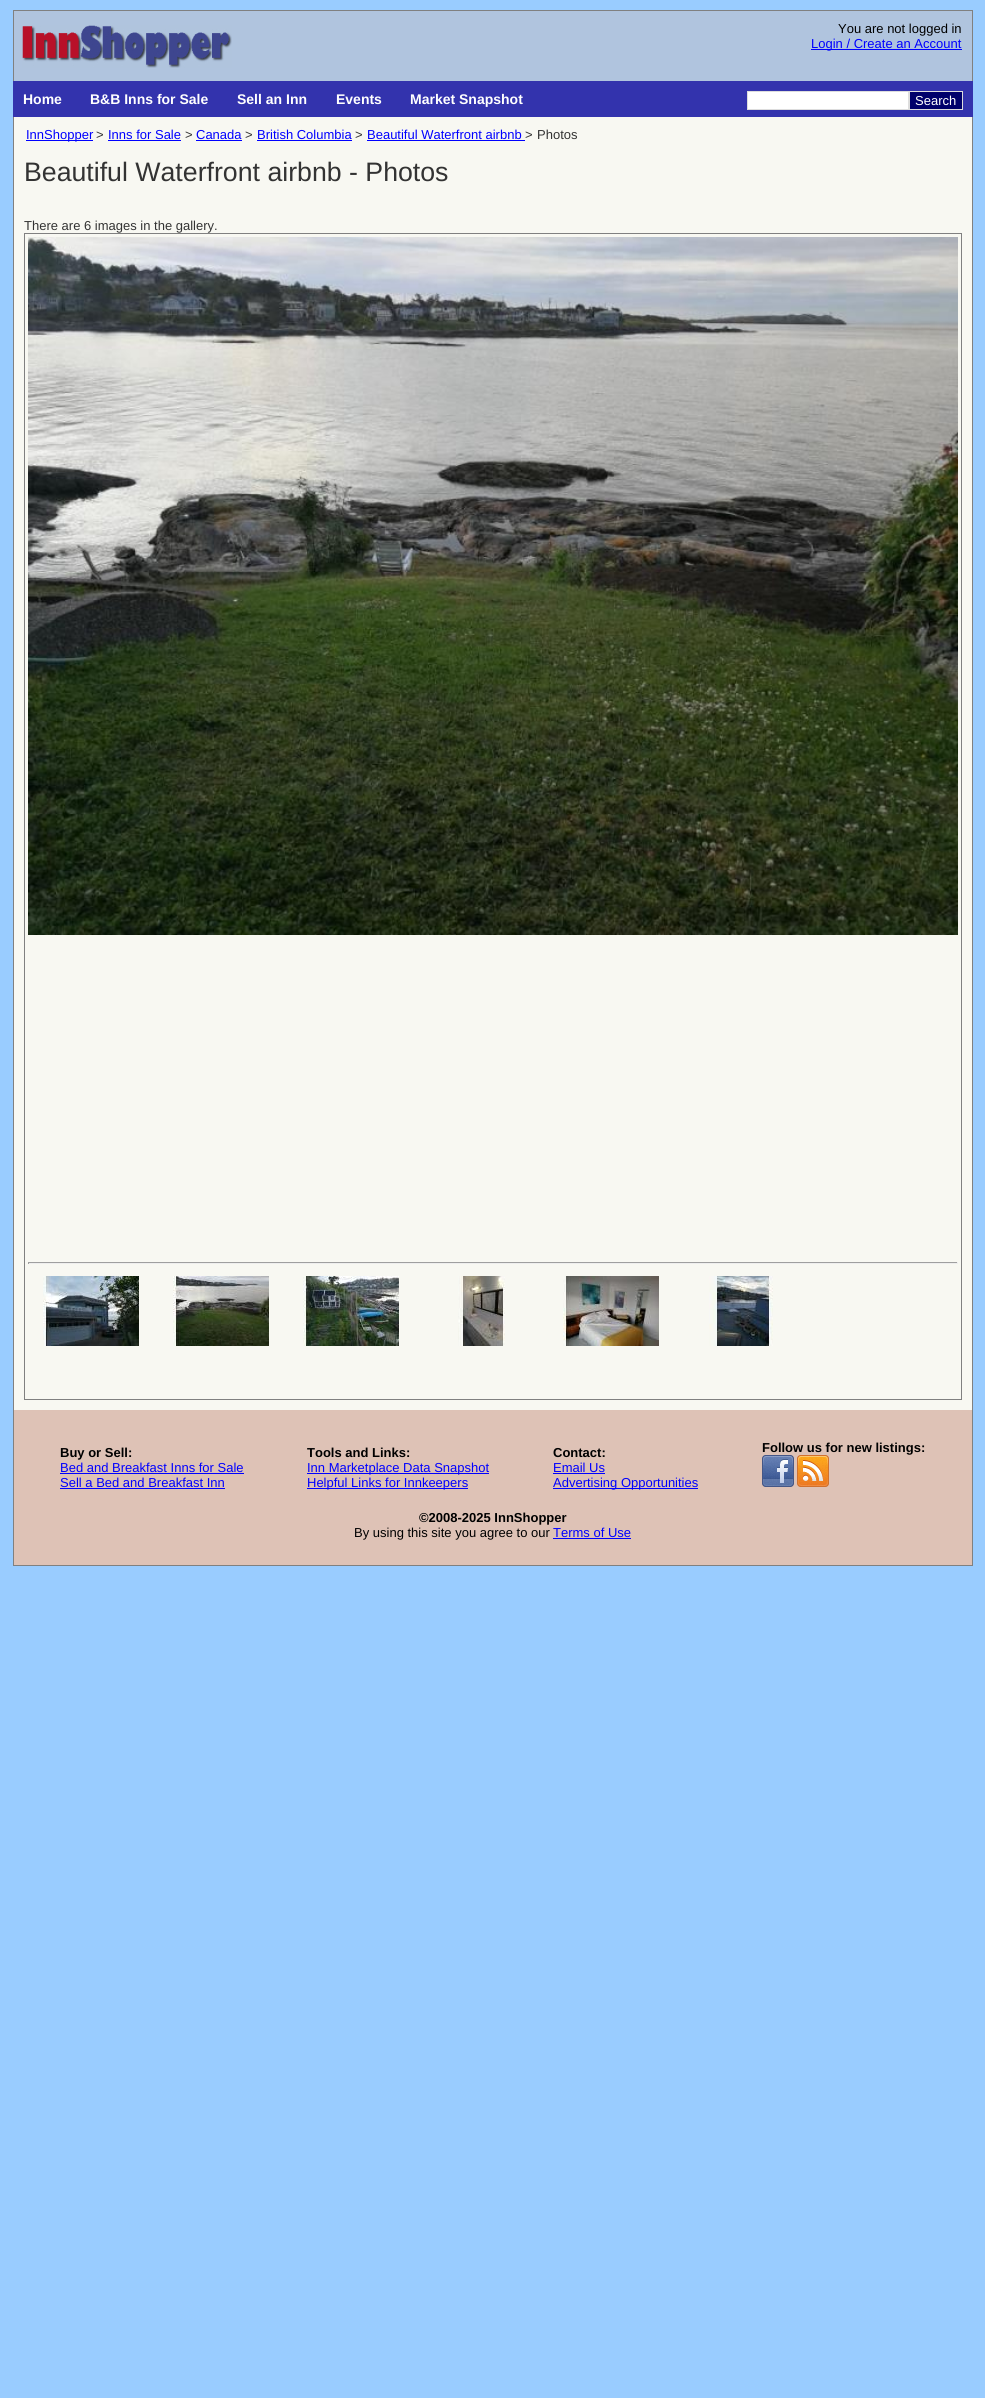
#include <cairo/cairo.h>
#include <math.h>
#include <stddef.h>

typedef struct { double x, y; const char *s; } line_t;
typedef struct { double x, y, w, h; unsigned color; } box_t;
static cairo_t *cr;

static void rgb(unsigned color)
{
	cairo_set_source_rgb(cr, (color >> 16) / 255.0, (color >> 8 & 255) / 255.0, (color & 255) / 255.0);
}

static void image(const char *path, double x, double y, double w, double h)
{
	cairo_surface_t *image = cairo_image_surface_create_from_png(path);
	cairo_save(cr);
	cairo_set_source_surface(cr, image, x, y);
	cairo_rectangle(cr, x, y, w, h);
	cairo_fill(cr);
	cairo_restore(cr);
	cairo_surface_destroy(image);
}

int main(void) {
	cairo_surface_t *surface = cairo_image_surface_create(CAIRO_FORMAT_RGB24, 985, 2398);
	cr = cairo_create(surface);
	cairo_font_options_t *options = cairo_font_options_create();
	cairo_font_options_set_hint_metrics(options, CAIRO_HINT_METRICS_OFF);
	cairo_font_options_set_hint_style(options, CAIRO_HINT_STYLE_NONE);
	cairo_set_font_options(cr, options);
	cairo_set_miter_limit(cr, 4);
	rgb(0x99ccff);
	cairo_paint(cr);
	{
		static const box_t items[] = {
			{14, 11, 958, 70, 0xb0c4de},
			{13, 10, 960, 1, 0x808080},
			{972, 10, 1, 71, 0x808080},
			{13, 10, 1, 71, 0x808080},
		};
		for (size_t i = 0; i < sizeof items / sizeof *items; i++) {
			rgb(items[i].color);
			cairo_rectangle(cr, items[i].x, items[i].y, items[i].w, items[i].h);
			cairo_fill(cr);
		}
	}
	image("img/1.png", 22, 25, 210, 43);
	rgb(0x0000ff);
	cairo_rectangle(cr, 811, 49, 151, 1);
	cairo_fill(cr);
	rgb(0x3333ad);
	cairo_rectangle(cr, 13, 81, 960, 36);
	cairo_fill(cr);
	rgb(0xffffff);
	cairo_rectangle(cr, 747.5, 91.5, 161, 18);
	cairo_fill_preserve(cr);
	rgb(0xdddddd);
	cairo_set_line_width(cr, 1);
	cairo_stroke(cr);
	rgb(0x00006b);
	cairo_rectangle(cr, 909.5, 91.5, 53, 18);
	cairo_fill_preserve(cr);
	rgb(0xdddddd);
	cairo_stroke(cr);
	{
		static const box_t items[] = {
			{14, 117, 958, 1293, 0xf8f8f2},
			{972, 117, 1, 1449, 0x808080},
			{13, 117, 1, 1293, 0x808080},
			{26, 140, 67, 1, 0x0000ff},
			{108, 140, 73, 1, 0x0000ff},
			{196, 140, 46, 1, 0x0000ff},
			{257, 140, 95, 1, 0x0000ff},
			{367, 140, 158, 1, 0x0000ff},
		};
		for (size_t i = 0; i < sizeof items / sizeof *items; i++) {
			rgb(items[i].color);
			cairo_rectangle(cr, items[i].x, items[i].y, items[i].w, items[i].h);
			cairo_fill(cr);
		}
	}
	cairo_rectangle(cr, 24.5, 233.5, 937, 1166);
	rgb(0x808080);
	cairo_stroke(cr);
	image("img/2.png", 28, 237, 930, 698);
	{
		static const box_t items[] = {
			{28, 1262, 930, 1, 0x9f9f9f},
			{957, 1262, 1, 2, 0xeeeeee},
			{28, 1263, 930, 1, 0xeeeeee},
			{28, 1262, 1, 2, 0x9f9f9f},
		};
		for (size_t i = 0; i < sizeof items / sizeof *items; i++) {
			rgb(items[i].color);
			cairo_rectangle(cr, items[i].x, items[i].y, items[i].w, items[i].h);
			cairo_fill(cr);
		}
	}
	image("img/3.png", 43, 1276, 96, 70);
	image("img/4.png", 173, 1276, 97, 70);
	image("img/5.png", 303, 1276, 96, 70);
	image("img/6.png", 458, 1276, 47, 70);
	image("img/7.png", 563, 1276, 96, 70);
	image("img/8.png", 709, 1276, 64, 70);
	{
		static const box_t items[] = {
			{14, 1410, 958, 155, 0xdec2b6},
			{13, 1565, 960, 1, 0x808080},
			{13, 1410, 1, 156, 0x808080},
			{60, 1473, 184, 1, 0x0000ff},
			{60, 1488, 165, 1, 0x0000ff},
			{307, 1473, 182, 1, 0x0000ff},
			{307, 1488, 161, 1, 0x0000ff},
			{553, 1473, 52, 1, 0x0000ff},
			{553, 1488, 145, 1, 0x0000ff},
		};
		for (size_t i = 0; i < sizeof items / sizeof *items; i++) {
			rgb(items[i].color);
			cairo_rectangle(cr, items[i].x, items[i].y, items[i].w, items[i].h);
			cairo_fill(cr);
		}
	}
	image("img/9.png", 762, 1455, 32, 32);
	image("img/10.png", 797, 1455, 32, 32);
	cairo_rectangle(cr, 553, 1538, 78, 1);
	cairo_fill(cr);
	cairo_select_font_face(cr, "Liberation Sans", CAIRO_FONT_SLANT_NORMAL, CAIRO_FONT_WEIGHT_NORMAL);
	cairo_set_font_size(cr, 13);
	rgb(0x000000);
	cairo_move_to(cr, 838, 33);
	cairo_show_text(cr, "You are not logged in");
	rgb(0x0000ff);
	cairo_move_to(cr, 811, 48);
	cairo_show_text(cr, "Login / Create an Account");
	cairo_select_font_face(cr, "Liberation Sans", CAIRO_FONT_SLANT_NORMAL, CAIRO_FONT_WEIGHT_BOLD);
	cairo_set_font_size(cr, 14);
	rgb(0xffffff);
	{
		static const line_t items[] = {
			{23, 104, "Home"},
			{90, 104, "B&B Inns for Sale"},
			{237, 104, "Sell an Inn"},
			{336, 104, "Events"},
			{410, 104, "Market Snapshot"},
		};
		for (size_t i = 0; i < sizeof items / sizeof *items; i++) {
			cairo_move_to(cr, items[i].x, items[i].y);
			cairo_show_text(cr, items[i].s);
		}
	}
	cairo_select_font_face(cr, "Liberation Sans", CAIRO_FONT_SLANT_NORMAL, CAIRO_FONT_WEIGHT_NORMAL);
	cairo_set_font_size(cr, 13);
	cairo_move_to(cr, 915, 105);
	cairo_show_text(cr, "Search");
	rgb(0x0000ff);
	cairo_move_to(cr, 26, 139);
	cairo_show_text(cr, "InnShopper");
	rgb(0x333333);
	cairo_move_to(cr, 96, 139);
	cairo_show_text(cr, ">");
	rgb(0x0000ff);
	cairo_move_to(cr, 108, 139);
	cairo_show_text(cr, "Inns for Sale");
	rgb(0x333333);
	cairo_move_to(cr, 185, 139);
	cairo_show_text(cr, ">");
	rgb(0x0000ff);
	cairo_move_to(cr, 196, 139);
	cairo_show_text(cr, "Canada");
	rgb(0x333333);
	cairo_move_to(cr, 245, 139);
	cairo_show_text(cr, ">");
	rgb(0x0000ff);
	cairo_move_to(cr, 257, 139);
	cairo_show_text(cr, "British Columbia");
	rgb(0x333333);
	cairo_move_to(cr, 355, 139);
	cairo_show_text(cr, ">");
	rgb(0x0000ff);
	cairo_move_to(cr, 367, 139);
	cairo_show_text(cr, "Beautiful Waterfront airbnb");
	rgb(0x333333);
	cairo_move_to(cr, 525, 139);
	cairo_show_text(cr, ">");
	cairo_move_to(cr, 537, 139);
	cairo_show_text(cr, "Photos");
	cairo_set_font_size(cr, 26.7);
	cairo_move_to(cr, 24, 181);
	cairo_show_text(cr, "Beautiful Waterfront airbnb - Photos");
	cairo_set_font_size(cr, 13);
	cairo_move_to(cr, 24, 230);
	cairo_show_text(cr, "There are 6 images in the gallery.");
	cairo_select_font_face(cr, "Liberation Sans", CAIRO_FONT_SLANT_NORMAL, CAIRO_FONT_WEIGHT_BOLD);
	rgb(0x000000);
	cairo_move_to(cr, 60, 1457);
	cairo_show_text(cr, "Buy or Sell:");
	cairo_select_font_face(cr, "Liberation Sans", CAIRO_FONT_SLANT_NORMAL, CAIRO_FONT_WEIGHT_NORMAL);
	rgb(0x0000ff);
	cairo_move_to(cr, 60, 1472);
	cairo_show_text(cr, "Bed and Breakfast Inns for Sale");
	cairo_move_to(cr, 60, 1487);
	cairo_show_text(cr, "Sell a Bed and Breakfast Inn");
	cairo_select_font_face(cr, "Liberation Sans", CAIRO_FONT_SLANT_NORMAL, CAIRO_FONT_WEIGHT_BOLD);
	rgb(0x000000);
	cairo_move_to(cr, 307, 1457);
	cairo_show_text(cr, "Tools and Links:");
	cairo_select_font_face(cr, "Liberation Sans", CAIRO_FONT_SLANT_NORMAL, CAIRO_FONT_WEIGHT_NORMAL);
	rgb(0x0000ff);
	cairo_move_to(cr, 307, 1472);
	cairo_show_text(cr, "Inn Marketplace Data Snapshot");
	cairo_move_to(cr, 307, 1487);
	cairo_show_text(cr, "Helpful Links for Innkeepers");
	cairo_select_font_face(cr, "Liberation Sans", CAIRO_FONT_SLANT_NORMAL, CAIRO_FONT_WEIGHT_BOLD);
	rgb(0x000000);
	cairo_move_to(cr, 553, 1457);
	cairo_show_text(cr, "Contact:");
	cairo_select_font_face(cr, "Liberation Sans", CAIRO_FONT_SLANT_NORMAL, CAIRO_FONT_WEIGHT_NORMAL);
	rgb(0x0000ff);
	cairo_move_to(cr, 553, 1472);
	cairo_show_text(cr, "Email Us");
	cairo_move_to(cr, 553, 1487);
	cairo_show_text(cr, "Advertising Opportunities");
	cairo_select_font_face(cr, "Liberation Sans", CAIRO_FONT_SLANT_NORMAL, CAIRO_FONT_WEIGHT_BOLD);
	rgb(0x000000);
	cairo_move_to(cr, 762, 1452);
	cairo_show_text(cr, "Follow us for new listings:");
	cairo_move_to(cr, 419, 1522);
	cairo_show_text(cr, "©2008-2025 InnShopper");
	cairo_select_font_face(cr, "Liberation Sans", CAIRO_FONT_SLANT_NORMAL, CAIRO_FONT_WEIGHT_NORMAL);
	cairo_move_to(cr, 354, 1537);
	cairo_show_text(cr, "By using this site you agree to our");
	rgb(0x0000ff);
	cairo_move_to(cr, 553, 1537);
	cairo_show_text(cr, "Terms of Use");
	cairo_surface_write_to_png(surface, "page.png");
	cairo_font_options_destroy(options);
	cairo_destroy(cr);
	cairo_surface_destroy(surface);
	return 0;
}
